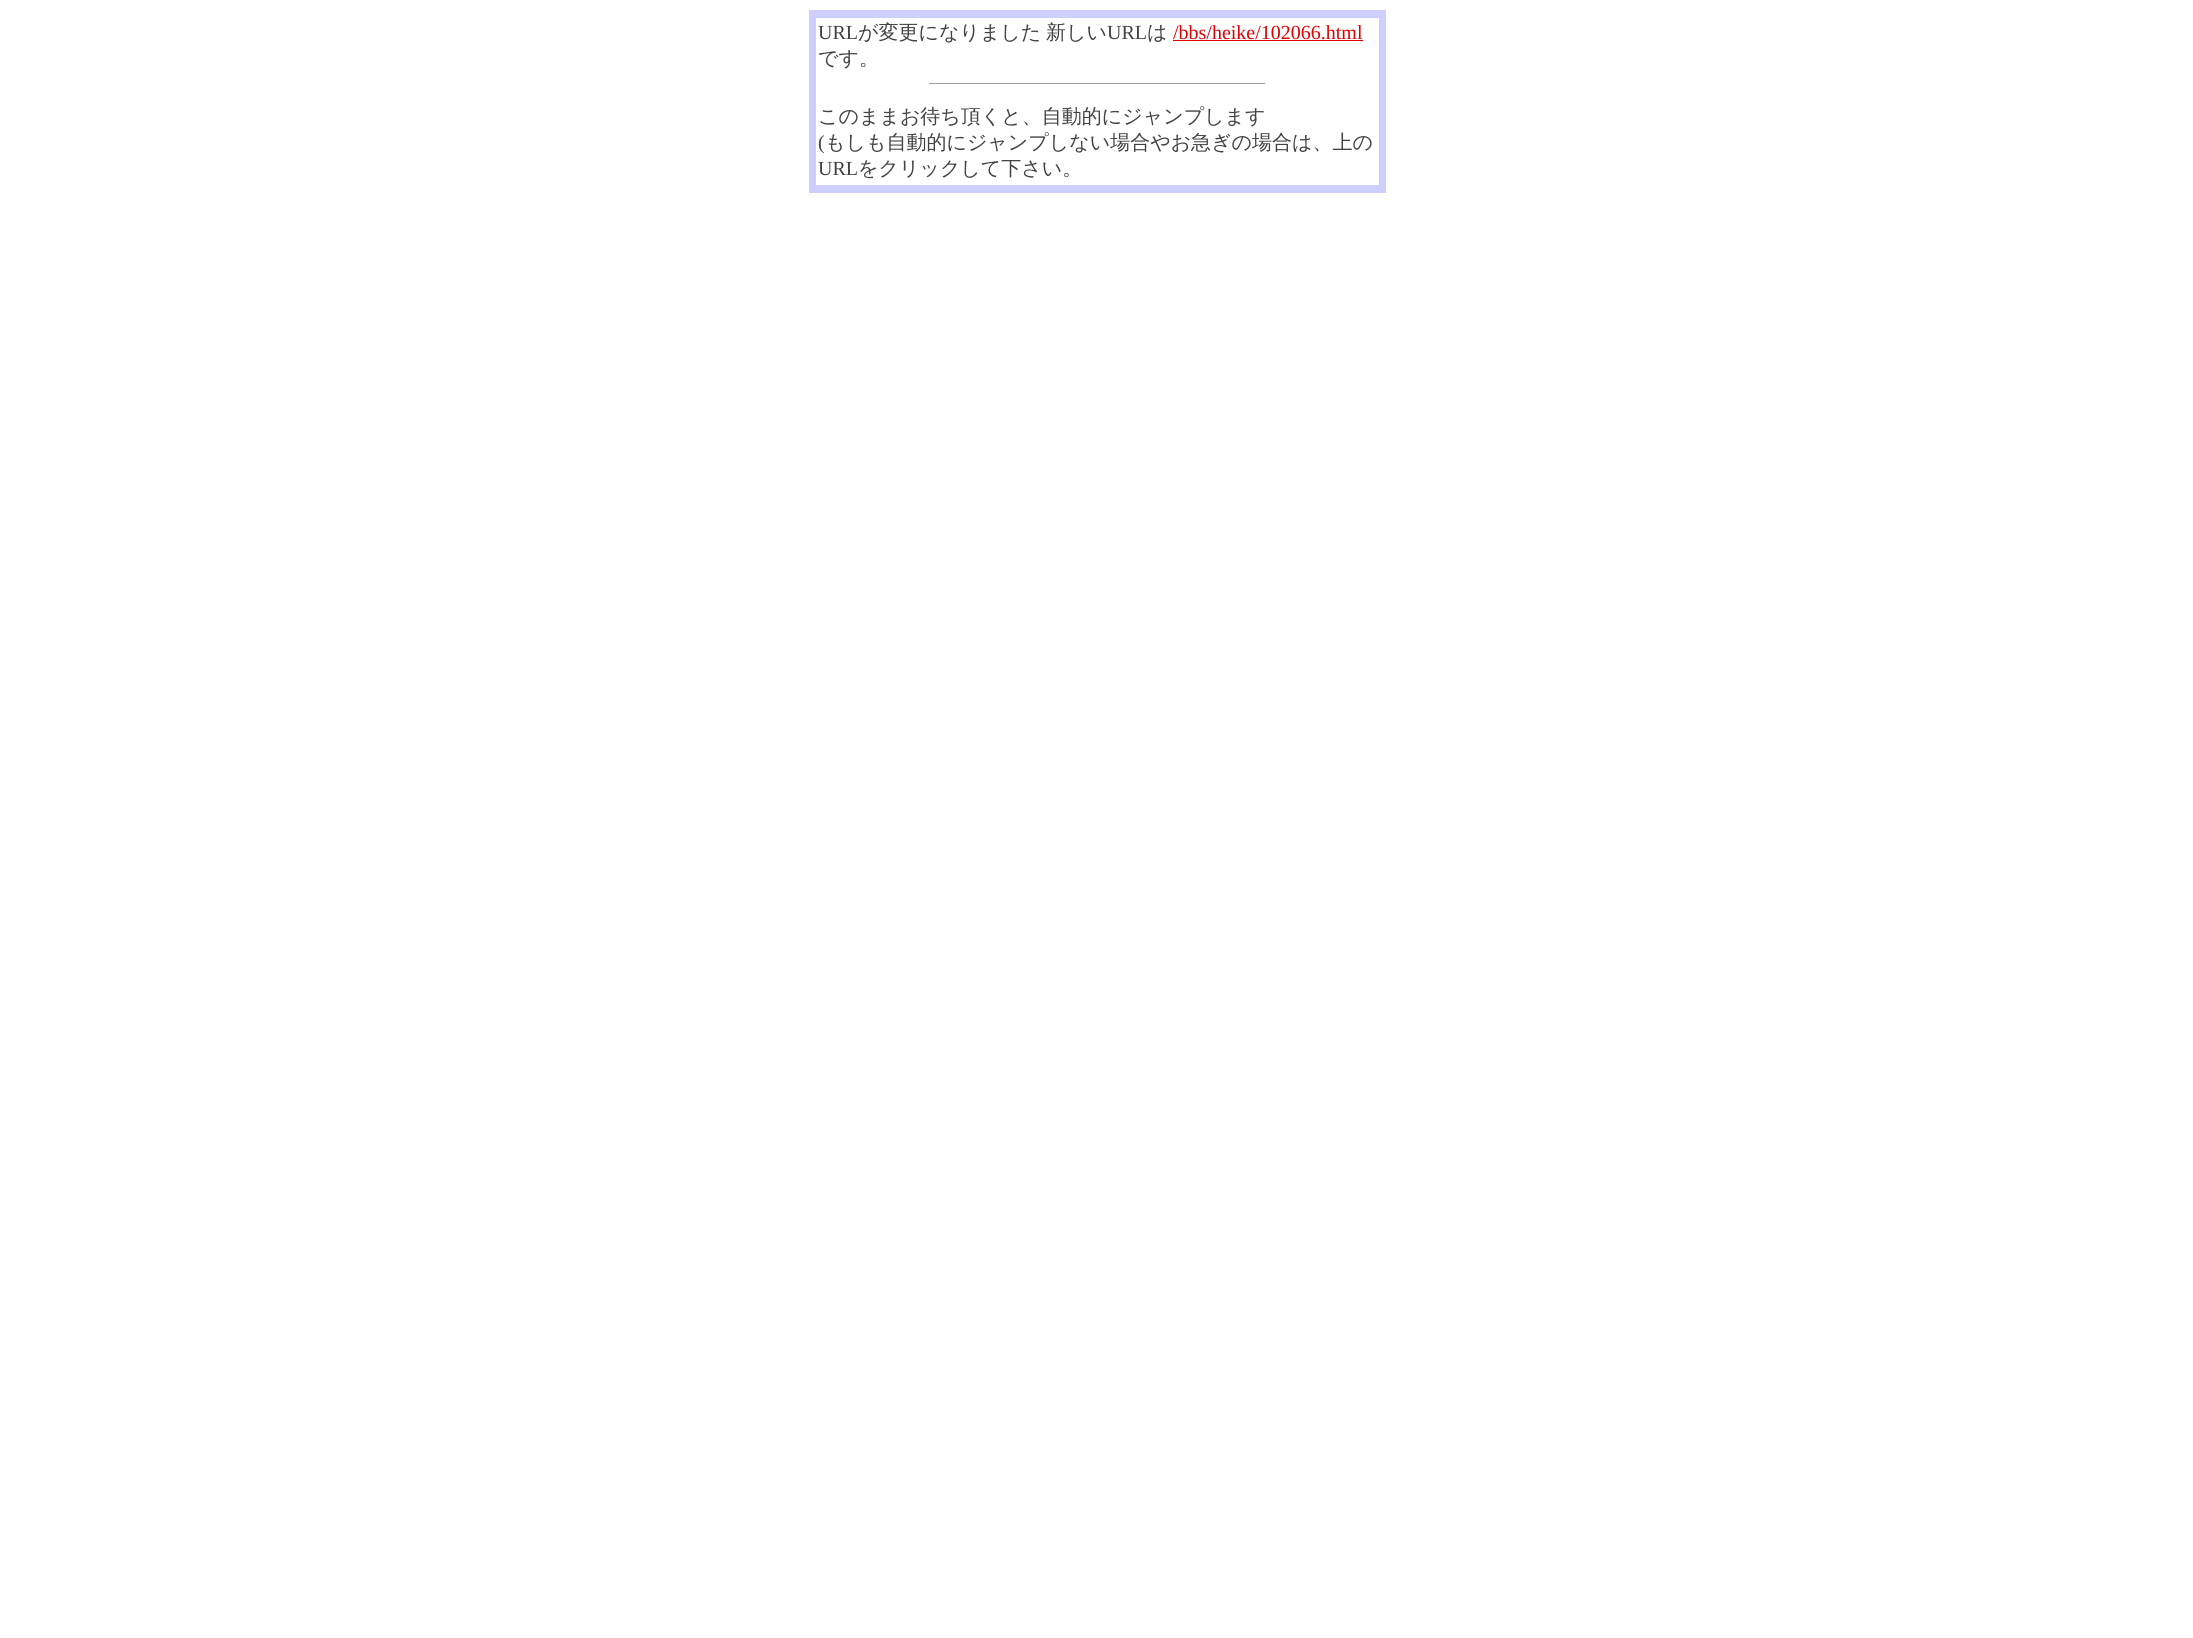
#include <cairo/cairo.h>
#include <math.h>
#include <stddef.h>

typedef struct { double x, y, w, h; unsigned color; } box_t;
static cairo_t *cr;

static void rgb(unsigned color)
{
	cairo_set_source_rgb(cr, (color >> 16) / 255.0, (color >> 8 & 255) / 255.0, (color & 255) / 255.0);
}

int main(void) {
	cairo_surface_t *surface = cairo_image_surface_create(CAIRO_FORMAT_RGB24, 2193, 1638);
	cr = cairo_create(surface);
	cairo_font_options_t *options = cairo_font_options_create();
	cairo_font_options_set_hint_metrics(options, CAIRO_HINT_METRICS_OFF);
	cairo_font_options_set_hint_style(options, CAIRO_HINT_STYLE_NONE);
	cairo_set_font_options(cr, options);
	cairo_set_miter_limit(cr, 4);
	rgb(0xffffff);
	cairo_paint(cr);
	{
		static const box_t items[] = {
			{809, 10, 577, 183, 0xceceff},
			{816, 18, 563, 167, 0xffffff},
			{1173, 40, 190, 1, 0xde0000},
			{929, 83, 337, 1, 0x9f9f9f},
			{1265, 83, 1, 1, 0xeeeeee},
		};
		for (size_t i = 0; i < sizeof items / sizeof *items; i++) {
			rgb(items[i].color);
			cairo_rectangle(cr, items[i].x, items[i].y, items[i].w, items[i].h);
			cairo_fill(cr);
		}
	}
	cairo_select_font_face(cr, "Liberation Serif", CAIRO_FONT_SLANT_NORMAL, CAIRO_FONT_WEIGHT_NORMAL);
	cairo_set_font_size(cr, 20);
	rgb(0x424242);
	cairo_move_to(cr, 818, 39);
	cairo_show_text(cr, "URL");
	cairo_select_font_face(cr, "WenQuanYi Zen Hei Medium", CAIRO_FONT_SLANT_NORMAL, CAIRO_FONT_WEIGHT_NORMAL);
	cairo_move_to(cr, 858, 39);
	cairo_show_text(cr, "が変更になりました");
	cairo_move_to(cr, 1046, 39);
	cairo_show_text(cr, "新しい");
	cairo_select_font_face(cr, "Liberation Serif", CAIRO_FONT_SLANT_NORMAL, CAIRO_FONT_WEIGHT_NORMAL);
	cairo_move_to(cr, 1107, 39);
	cairo_show_text(cr, "URL");
	cairo_select_font_face(cr, "WenQuanYi Zen Hei Medium", CAIRO_FONT_SLANT_NORMAL, CAIRO_FONT_WEIGHT_NORMAL);
	cairo_move_to(cr, 1147, 39);
	cairo_show_text(cr, "は");
	cairo_select_font_face(cr, "Liberation Serif", CAIRO_FONT_SLANT_NORMAL, CAIRO_FONT_WEIGHT_NORMAL);
	rgb(0xde0000);
	cairo_move_to(cr, 1173, 39);
	cairo_show_text(cr, "/bbs/heike/102066.html");
	cairo_select_font_face(cr, "WenQuanYi Zen Hei Medium", CAIRO_FONT_SLANT_NORMAL, CAIRO_FONT_WEIGHT_NORMAL);
	rgb(0x424242);
	cairo_move_to(cr, 818, 65);
	cairo_show_text(cr, "です。");
	cairo_move_to(cr, 818, 123);
	cairo_show_text(cr, "このままお待ち頂くと、自動的にジャンプします");
	cairo_select_font_face(cr, "Liberation Serif", CAIRO_FONT_SLANT_NORMAL, CAIRO_FONT_WEIGHT_NORMAL);
	cairo_move_to(cr, 818, 149);
	cairo_show_text(cr, "(");
	cairo_select_font_face(cr, "WenQuanYi Zen Hei Medium", CAIRO_FONT_SLANT_NORMAL, CAIRO_FONT_WEIGHT_NORMAL);
	cairo_move_to(cr, 825, 149);
	cairo_show_text(cr, "もしも自動的にジャンプしない場合やお急ぎの場合は、上の");
	cairo_select_font_face(cr, "Liberation Serif", CAIRO_FONT_SLANT_NORMAL, CAIRO_FONT_WEIGHT_NORMAL);
	cairo_move_to(cr, 818, 175);
	cairo_show_text(cr, "URL");
	cairo_select_font_face(cr, "WenQuanYi Zen Hei Medium", CAIRO_FONT_SLANT_NORMAL, CAIRO_FONT_WEIGHT_NORMAL);
	cairo_move_to(cr, 858, 175);
	cairo_show_text(cr, "をクリックして下さい。");
	cairo_surface_write_to_png(surface, "page.png");
	cairo_font_options_destroy(options);
	cairo_destroy(cr);
	cairo_surface_destroy(surface);
	return 0;
}
